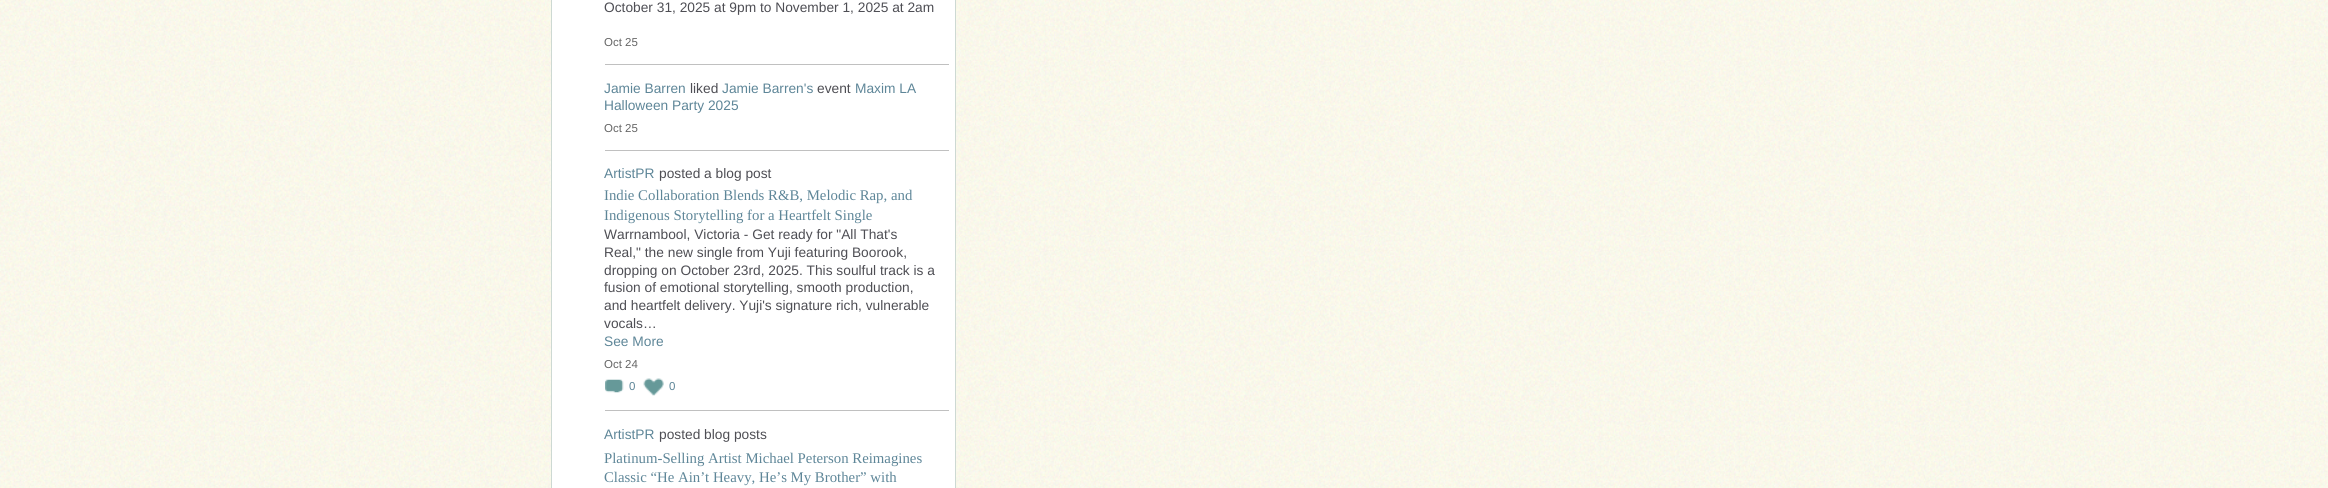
#include <cairo/cairo.h>
#include <math.h>
#include <stddef.h>

typedef struct { double x, y; const char *s; } line_t;
typedef struct { double x, y, w, h; unsigned color; } box_t;
static cairo_t *cr;

static void rgb(unsigned color)
{
	cairo_set_source_rgb(cr, (color >> 16) / 255.0, (color >> 8 & 255) / 255.0, (color & 255) / 255.0);
}

static void image(const char *path, double x, double y, double w, double h)
{
	cairo_surface_t *image = cairo_image_surface_create_from_png(path);
	cairo_save(cr);
	cairo_set_source_surface(cr, image, x, y);
	cairo_rectangle(cr, x, y, w, h);
	cairo_fill(cr);
	cairo_restore(cr);
	cairo_surface_destroy(image);
}

int main(void) {
	cairo_surface_t *surface = cairo_image_surface_create(CAIRO_FORMAT_RGB24, 2328, 488);
	cr = cairo_create(surface);
	cairo_font_options_t *options = cairo_font_options_create();
	cairo_font_options_set_hint_metrics(options, CAIRO_HINT_METRICS_OFF);
	cairo_font_options_set_hint_style(options, CAIRO_HINT_STYLE_NONE);
	cairo_set_font_options(cr, options);
	cairo_set_miter_limit(cr, 4);
	rgb(0xffffff);
	cairo_paint(cr);
	image("img/1.png", 0, 0, 2328, 488);
	rgb(0xffffff);
	cairo_rectangle(cr, 551.5, -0.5, 404, 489);
	cairo_fill_preserve(cr);
	rgb(0xcdd9d3);
	cairo_set_line_width(cr, 1);
	cairo_stroke(cr);
	{
		static const box_t items[] = {
			{605, 64, 344, 1, 0xc0c0c0},
			{605, 150, 344, 1, 0xc0c0c0},
			{605, 410, 344, 1, 0xc0c0c0},
		};
		for (size_t i = 0; i < sizeof items / sizeof *items; i++) {
			rgb(items[i].color);
			cairo_rectangle(cr, items[i].x, items[i].y, items[i].w, items[i].h);
			cairo_fill(cr);
		}
	}
	image("img/2.png", 605, 379, 19, 14);
	image("img/3.png", 643, 378, 21, 18);
	cairo_select_font_face(cr, "Liberation Sans", CAIRO_FONT_SLANT_NORMAL, CAIRO_FONT_WEIGHT_NORMAL);
	cairo_set_font_size(cr, 13.75);
	rgb(0x4e4e54);
	cairo_move_to(cr, 604, 12);
	cairo_show_text(cr, "October 31, 2025 at 9pm to November 1, 2025 at 2am");
	cairo_set_font_size(cr, 11.5);
	rgb(0x666666);
	cairo_move_to(cr, 604, 46);
	cairo_show_text(cr, "Oct 25");
	cairo_set_font_size(cr, 13.75);
	rgb(0x5e8698);
	cairo_move_to(cr, 604, 93);
	cairo_show_text(cr, "Jamie Barren");
	rgb(0x4e4e54);
	cairo_move_to(cr, 690, 93);
	cairo_show_text(cr, "liked");
	rgb(0x5e8698);
	cairo_move_to(cr, 722, 93);
	cairo_show_text(cr, "Jamie Barren's");
	rgb(0x4e4e54);
	cairo_move_to(cr, 817, 93);
	cairo_show_text(cr, "event");
	rgb(0x5e8698);
	cairo_move_to(cr, 855, 93);
	cairo_show_text(cr, "Maxim LA");
	cairo_move_to(cr, 604, 110);
	cairo_show_text(cr, "Halloween Party 2025");
	cairo_set_font_size(cr, 11.5);
	rgb(0x666666);
	cairo_move_to(cr, 604, 132);
	cairo_show_text(cr, "Oct 25");
	cairo_set_font_size(cr, 13.75);
	rgb(0x5e8698);
	cairo_move_to(cr, 604, 178);
	cairo_show_text(cr, "ArtistPR");
	rgb(0x4e4e54);
	cairo_move_to(cr, 659, 178);
	cairo_show_text(cr, "posted a blog post");
	cairo_select_font_face(cr, "Liberation Serif", CAIRO_FONT_SLANT_NORMAL, CAIRO_FONT_WEIGHT_NORMAL);
	cairo_set_font_size(cr, 14.8);
	rgb(0x5e8698);
	cairo_move_to(cr, 604, 200);
	cairo_show_text(cr, "Indie Collaboration Blends R&B, Melodic Rap, and");
	cairo_move_to(cr, 604, 220);
	cairo_show_text(cr, "Indigenous Storytelling for a Heartfelt Single");
	cairo_select_font_face(cr, "Liberation Sans", CAIRO_FONT_SLANT_NORMAL, CAIRO_FONT_WEIGHT_NORMAL);
	cairo_set_font_size(cr, 13.75);
	rgb(0x4e4e54);
	{
		static const line_t items[] = {
			{604, 239, "Warrnambool, Victoria - Get ready for \"All That's"},
			{604, 257, "Real,\" the new single from Yuji featuring Boorook,"},
			{604, 275, "dropping on October 23rd, 2025. This soulful track is a"},
			{604, 292, "fusion of emotional storytelling, smooth production,"},
			{604, 310, "and heartfelt delivery. Yuji's signature rich, vulnerable"},
			{604, 328, "vocals…"},
		};
		for (size_t i = 0; i < sizeof items / sizeof *items; i++) {
			cairo_move_to(cr, items[i].x, items[i].y);
			cairo_show_text(cr, items[i].s);
		}
	}
	rgb(0x5e8698);
	cairo_move_to(cr, 604, 346);
	cairo_show_text(cr, "See More");
	cairo_set_font_size(cr, 11.5);
	rgb(0x666666);
	cairo_move_to(cr, 604, 368);
	cairo_show_text(cr, "Oct 24");
	rgb(0x5e8698);
	cairo_move_to(cr, 629, 390);
	cairo_show_text(cr, "0");
	cairo_move_to(cr, 669, 390);
	cairo_show_text(cr, "0");
	cairo_set_font_size(cr, 13.75);
	cairo_move_to(cr, 604, 439);
	cairo_show_text(cr, "ArtistPR");
	rgb(0x4e4e54);
	cairo_move_to(cr, 659, 439);
	cairo_show_text(cr, "posted blog posts");
	cairo_select_font_face(cr, "Liberation Serif", CAIRO_FONT_SLANT_NORMAL, CAIRO_FONT_WEIGHT_NORMAL);
	cairo_set_font_size(cr, 14.8);
	rgb(0x5e8698);
	cairo_move_to(cr, 604, 463);
	cairo_show_text(cr, "Platinum-Selling Artist Michael Peterson Reimagines");
	cairo_move_to(cr, 604, 482);
	cairo_show_text(cr, "Classic “He Ain’t Heavy, He’s My Brother” with");
	cairo_surface_write_to_png(surface, "page.png");
	cairo_font_options_destroy(options);
	cairo_destroy(cr);
	cairo_surface_destroy(surface);
	return 0;
}
